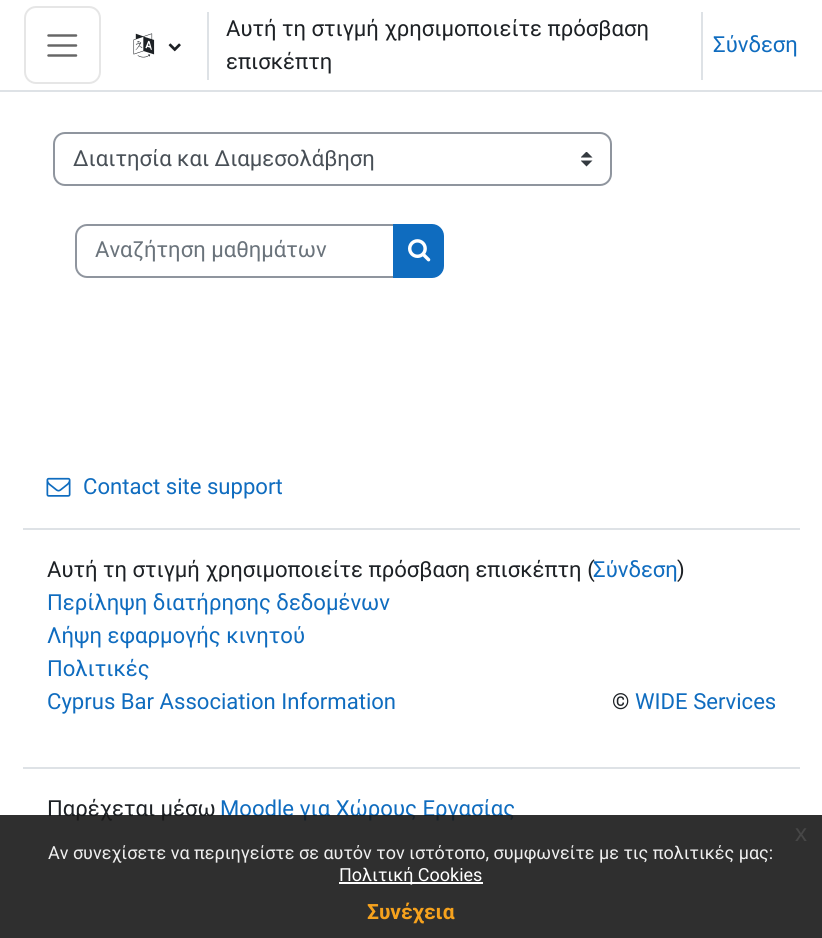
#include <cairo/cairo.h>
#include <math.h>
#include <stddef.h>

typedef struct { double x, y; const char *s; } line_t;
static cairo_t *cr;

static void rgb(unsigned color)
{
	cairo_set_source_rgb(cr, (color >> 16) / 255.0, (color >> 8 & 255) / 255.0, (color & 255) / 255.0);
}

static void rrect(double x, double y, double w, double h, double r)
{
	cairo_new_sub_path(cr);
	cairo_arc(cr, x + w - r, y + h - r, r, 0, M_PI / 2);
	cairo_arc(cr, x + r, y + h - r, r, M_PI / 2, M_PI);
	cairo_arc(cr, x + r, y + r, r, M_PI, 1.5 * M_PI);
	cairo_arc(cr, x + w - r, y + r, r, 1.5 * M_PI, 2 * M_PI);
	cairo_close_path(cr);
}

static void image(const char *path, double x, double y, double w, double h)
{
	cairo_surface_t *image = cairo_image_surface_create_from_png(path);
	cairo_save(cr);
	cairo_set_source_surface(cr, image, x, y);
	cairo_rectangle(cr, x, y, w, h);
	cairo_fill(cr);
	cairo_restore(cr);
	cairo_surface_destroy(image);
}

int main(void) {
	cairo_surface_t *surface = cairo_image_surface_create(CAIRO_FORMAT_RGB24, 822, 938);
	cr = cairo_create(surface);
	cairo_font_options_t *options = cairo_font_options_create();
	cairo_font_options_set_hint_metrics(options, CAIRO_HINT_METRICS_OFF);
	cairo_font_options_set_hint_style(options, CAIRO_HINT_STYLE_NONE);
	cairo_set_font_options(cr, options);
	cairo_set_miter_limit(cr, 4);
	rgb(0xffffff);
	cairo_paint(cr);
	rgb(0xdee2e6);
	cairo_rectangle(cr, 0, 90, 822, 2);
	cairo_fill(cr);
	rrect(25, 7, 75, 76, 11);
	rgb(0xe6e6e6);
	cairo_stroke(cr);
	cairo_new_path(cr);
	cairo_move_to(cr, 48.5, 35.5);
	cairo_line_to(cr, 76, 35.5);
	cairo_move_to(cr, 48.5, 45.5);
	cairo_line_to(cr, 76, 45.5);
	cairo_move_to(cr, 48.5, 55.5);
	cairo_line_to(cr, 76, 55.5);
	rgb(0x666666);
	cairo_set_line_width(cr, 2.5);
	cairo_set_line_cap(cr, CAIRO_LINE_CAP_ROUND);
	cairo_stroke(cr);
	image("img/1.png", 133, 33, 22, 25);
	image("img/2.png", 168, 43, 13, 9);
	rgb(0xdee2e6);
	cairo_rectangle(cr, 207, 12, 2, 68);
	cairo_fill(cr);
	cairo_rectangle(cr, 701, 12, 2, 68);
	cairo_fill(cr);
	image("img/3.png", 581, 152, 12, 15);
	rrect(54, 133, 557, 52, 11);
	rgb(0x8f959e);
	cairo_set_line_width(cr, 2);
	cairo_set_line_cap(cr, CAIRO_LINE_CAP_BUTT);
	cairo_stroke(cr);
	cairo_new_path(cr);
	cairo_move_to(cr, 87, 225);
	cairo_line_to(cr, 394, 225);
	cairo_line_to(cr, 394, 277);
	cairo_line_to(cr, 87, 277);
	cairo_curve_to(cr, 81, 277, 76, 272, 76, 266);
	cairo_line_to(cr, 76, 236);
	cairo_curve_to(cr, 76, 230, 81, 225, 87, 225);
	cairo_close_path(cr);
	cairo_stroke(cr);
	rgb(0x0f6cbf);
	cairo_new_path(cr);
	cairo_move_to(cr, 394, 225);
	cairo_line_to(cr, 432, 225);
	cairo_curve_to(cr, 438, 225, 443, 230, 443, 236);
	cairo_line_to(cr, 443, 266);
	cairo_curve_to(cr, 443, 272, 438, 277, 432, 277);
	cairo_line_to(cr, 394, 277);
	cairo_close_path(cr);
	cairo_fill_preserve(cr);
	cairo_stroke(cr);
	image("img/4.png", 408, 239, 23, 23);
	rgb(0xdee2e6);
	cairo_rectangle(cr, 23, 528, 777, 2);
	cairo_fill(cr);
	image("img/5.png", 46, 477, 25, 20);
	cairo_rectangle(cr, 23, 767, 777, 2);
	cairo_fill(cr);
	cairo_select_font_face(cr, "Roboto", CAIRO_FONT_SLANT_NORMAL, CAIRO_FONT_WEIGHT_NORMAL);
	cairo_set_font_size(cr, 22.1);
	rgb(0x1d2125);
	cairo_move_to(cr, 226, 36);
	cairo_show_text(cr, "Αυτή τη στιγμή χρησιμοποιείτε πρόσβαση");
	rgb(0x0f6cbf);
	cairo_move_to(cr, 713, 52);
	cairo_show_text(cr, "Σύνδεση");
	rgb(0x1d2125);
	cairo_move_to(cr, 226, 69);
	cairo_show_text(cr, "επισκέπτη");
	rgb(0x495057);
	cairo_move_to(cr, 73, 166);
	cairo_show_text(cr, "Διαιτησία και Διαμεσολάβηση");
	rgb(0x6a737b);
	cairo_move_to(cr, 95, 257);
	cairo_show_text(cr, "Αναζήτηση μαθημάτων");
	rgb(0x0f6cbf);
	cairo_move_to(cr, 83, 494);
	cairo_show_text(cr, "Contact site support");
	rgb(0x1d2125);
	cairo_move_to(cr, 47, 577);
	cairo_show_text(cr, "Αυτή τη στιγμή χρησιμοποιείτε πρόσβαση επισκέπτη (");
	rgb(0x0f6cbf);
	cairo_move_to(cr, 593, 577);
	cairo_show_text(cr, "Σύνδεση");
	rgb(0x1d2125);
	cairo_move_to(cr, 677, 577);
	cairo_show_text(cr, ")");
	rgb(0x0f6cbf);
	{
		static const line_t items[] = {
			{47, 610, "Περίληψη διατήρησης δεδομένων"},
			{47, 643, "Λήψη εφαρμογής κινητού"},
			{47, 676, "Πολιτικές"},
			{47, 709, "Cyprus Bar Association Information"},
		};
		for (size_t i = 0; i < sizeof items / sizeof *items; i++) {
			cairo_move_to(cr, items[i].x, items[i].y);
			cairo_show_text(cr, items[i].s);
		}
	}
	rgb(0x1d2125);
	cairo_move_to(cr, 612, 709);
	cairo_show_text(cr, "©");
	rgb(0x0f6cbf);
	cairo_move_to(cr, 635, 709);
	cairo_show_text(cr, "WIDE Services");
	rgb(0x1d2125);
	cairo_move_to(cr, 47, 816);
	cairo_show_text(cr, "Παρέχεται μέσω");
	rgb(0x0f6cbf);
	cairo_move_to(cr, 220, 816);
	cairo_show_text(cr, "Moodle για Χώρους Εργασίας");
	cairo_set_source_rgba(cr, 0.098, 0.098, 0.098, 0.9);
	cairo_rectangle(cr, 0, 815, 822, 123);
	cairo_fill(cr);
	cairo_select_font_face(cr, "Liberation Sans", CAIRO_FONT_SLANT_NORMAL, CAIRO_FONT_WEIGHT_NORMAL);
	cairo_set_font_size(cr, 24);
	rgb(0x474747);
	cairo_move_to(cr, 795, 841);
	cairo_show_text(cr, "x");
	cairo_select_font_face(cr, "Roboto", CAIRO_FONT_SLANT_NORMAL, CAIRO_FONT_WEIGHT_NORMAL);
	cairo_set_font_size(cr, 18);
	rgb(0xefefef);
	cairo_move_to(cr, 48, 859);
	cairo_show_text(cr, "Αν συνεχίσετε να περιηγείστε σε αυτόν τον ιστότοπο, συμφωνείτε με τις πολιτικές μας:");
	rgb(0xffffff);
	cairo_rectangle(cr, 339, 882, 144, 2);
	cairo_fill(cr);
	cairo_move_to(cr, 339, 881);
	cairo_show_text(cr, "Πολιτική Cookies");
	cairo_select_font_face(cr, "Roboto", CAIRO_FONT_SLANT_NORMAL, CAIRO_FONT_WEIGHT_BOLD);
	cairo_set_font_size(cr, 21);
	rgb(0xf6a21d);
	cairo_move_to(cr, 367, 919);
	cairo_show_text(cr, "Συνέχεια");
	cairo_surface_write_to_png(surface, "page.png");
	cairo_font_options_destroy(options);
	cairo_destroy(cr);
	cairo_surface_destroy(surface);
	return 0;
}
